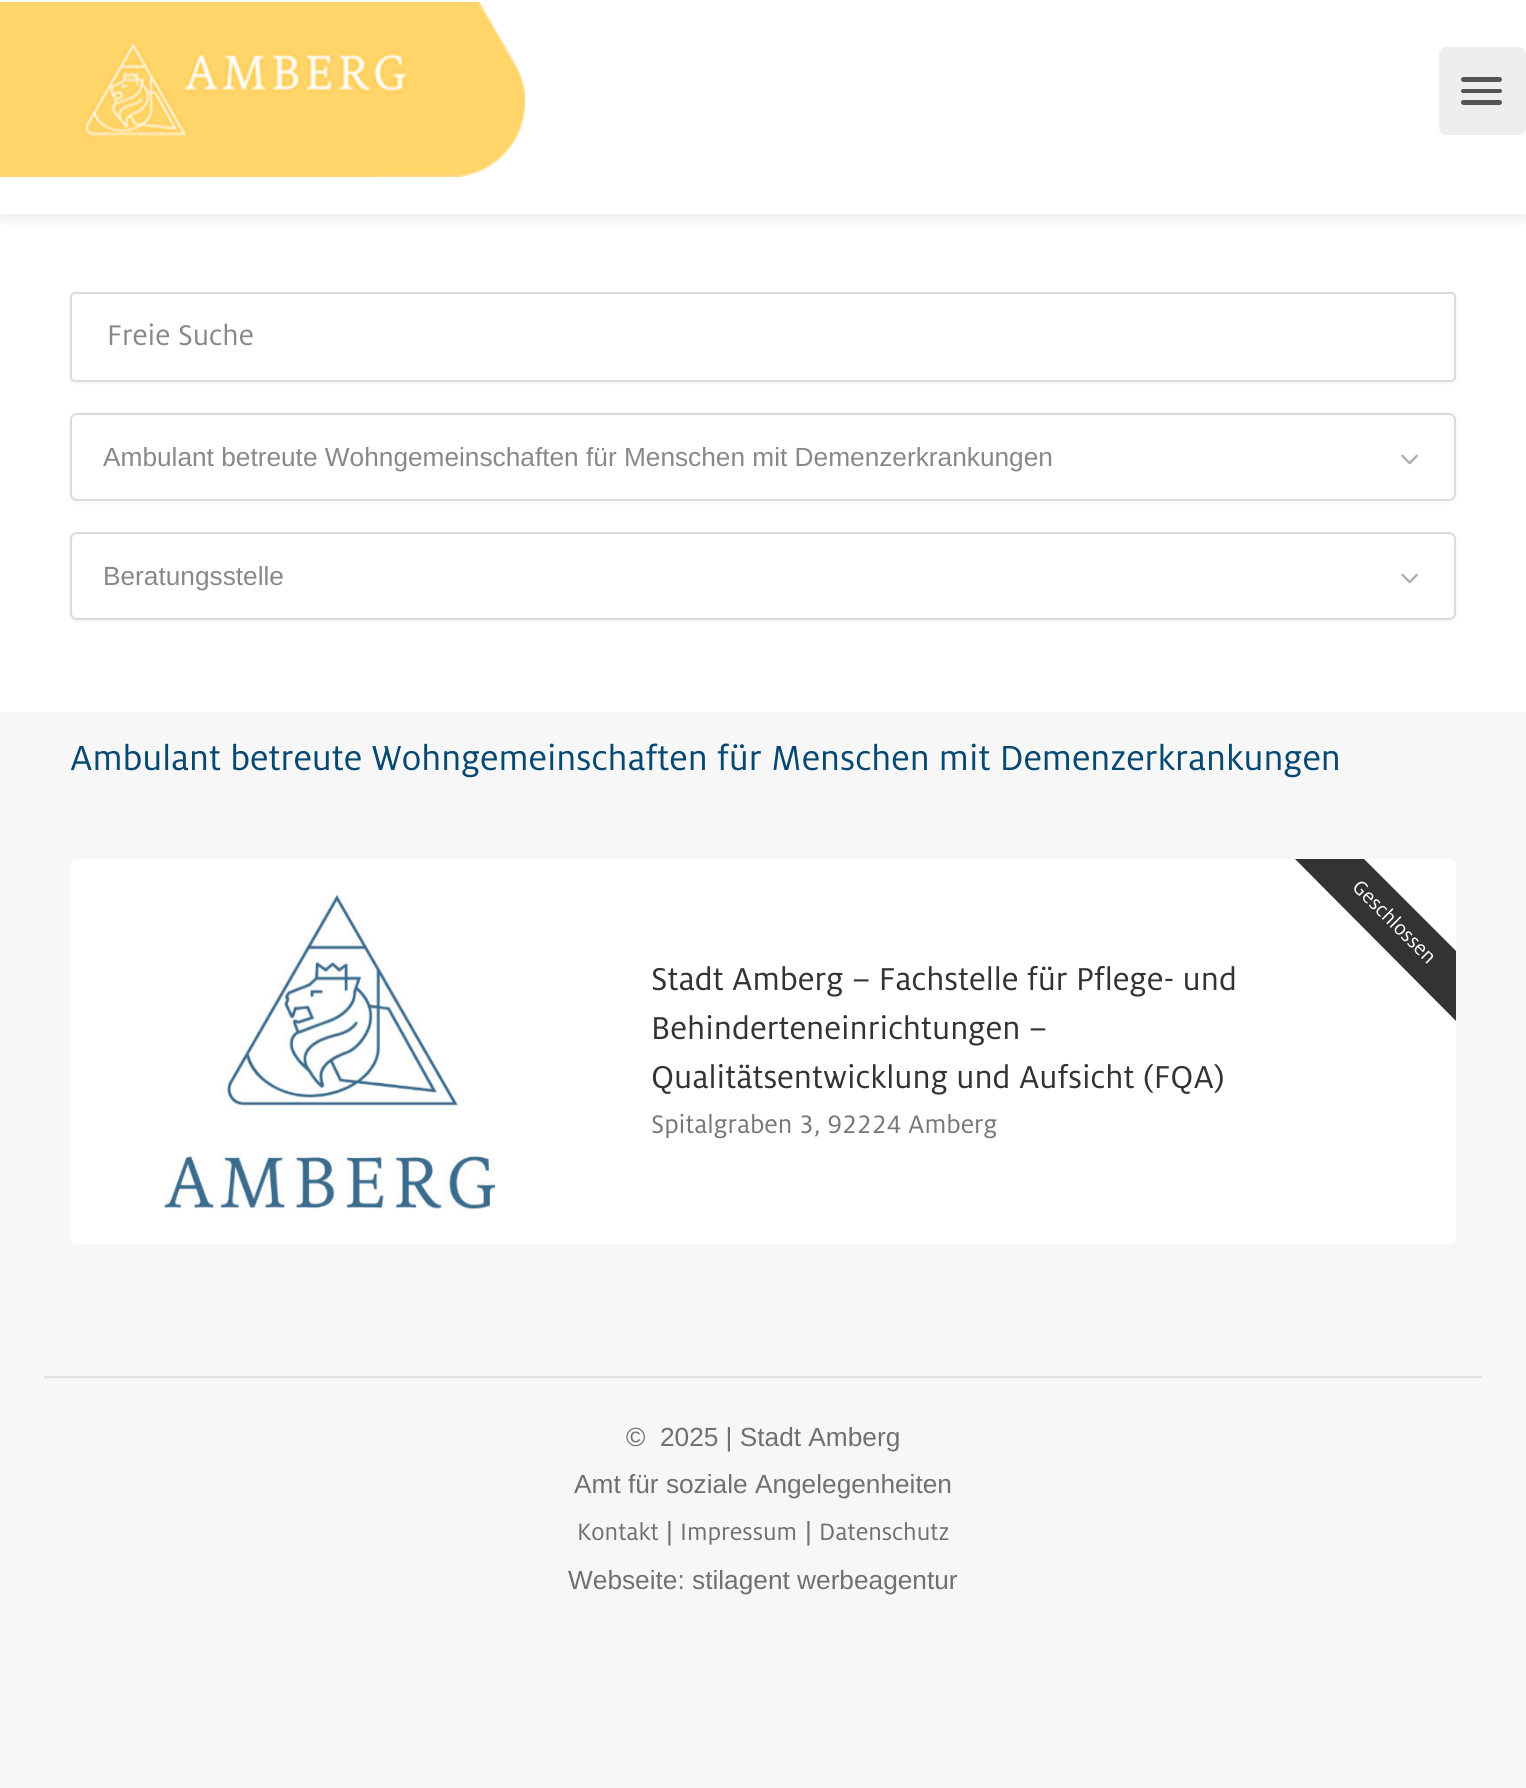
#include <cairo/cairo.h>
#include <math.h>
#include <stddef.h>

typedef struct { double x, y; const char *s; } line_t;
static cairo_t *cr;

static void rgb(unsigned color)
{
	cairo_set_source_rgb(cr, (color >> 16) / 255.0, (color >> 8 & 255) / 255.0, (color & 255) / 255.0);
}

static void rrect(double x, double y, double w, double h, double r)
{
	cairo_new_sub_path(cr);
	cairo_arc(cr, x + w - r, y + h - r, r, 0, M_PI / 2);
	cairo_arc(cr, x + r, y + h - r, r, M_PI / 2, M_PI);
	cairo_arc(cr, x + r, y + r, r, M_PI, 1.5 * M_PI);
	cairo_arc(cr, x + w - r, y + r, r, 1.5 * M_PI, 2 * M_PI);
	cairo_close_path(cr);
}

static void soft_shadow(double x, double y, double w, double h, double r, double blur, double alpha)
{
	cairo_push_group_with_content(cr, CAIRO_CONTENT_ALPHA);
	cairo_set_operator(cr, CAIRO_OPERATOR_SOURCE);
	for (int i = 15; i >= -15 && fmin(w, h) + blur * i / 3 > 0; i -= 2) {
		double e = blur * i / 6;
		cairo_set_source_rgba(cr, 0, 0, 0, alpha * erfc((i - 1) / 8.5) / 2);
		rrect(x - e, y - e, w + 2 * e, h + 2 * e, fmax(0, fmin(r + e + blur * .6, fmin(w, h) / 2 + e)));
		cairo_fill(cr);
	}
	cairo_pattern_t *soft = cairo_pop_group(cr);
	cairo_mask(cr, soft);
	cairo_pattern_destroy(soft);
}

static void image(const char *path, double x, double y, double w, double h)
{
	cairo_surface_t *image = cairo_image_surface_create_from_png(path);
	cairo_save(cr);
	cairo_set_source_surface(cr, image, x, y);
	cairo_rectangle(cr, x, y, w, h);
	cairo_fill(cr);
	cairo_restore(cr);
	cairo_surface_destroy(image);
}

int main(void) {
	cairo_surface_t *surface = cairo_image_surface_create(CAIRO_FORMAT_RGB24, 1526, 1788);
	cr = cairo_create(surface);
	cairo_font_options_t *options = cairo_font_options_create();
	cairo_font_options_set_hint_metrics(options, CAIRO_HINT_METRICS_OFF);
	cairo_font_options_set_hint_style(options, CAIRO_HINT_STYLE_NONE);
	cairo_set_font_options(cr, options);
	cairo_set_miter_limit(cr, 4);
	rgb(0xf7f7f7);
	cairo_paint(cr);
	rgb(0xffffff);
	cairo_rectangle(cr, 0, 0, 1526, 712);
	cairo_fill(cr);
	cairo_save(cr);
	cairo_set_fill_rule(cr, CAIRO_FILL_RULE_EVEN_ODD);
	cairo_new_path(cr);
	cairo_move_to(cr, 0, 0);
	cairo_line_to(cr, 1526, 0);
	cairo_line_to(cr, 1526, 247);
	cairo_line_to(cr, 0, 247);
	cairo_close_path(cr);
	cairo_move_to(cr, 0, -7);
	cairo_line_to(cr, 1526, -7);
	cairo_line_to(cr, 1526, 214);
	cairo_line_to(cr, 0, 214);
	cairo_close_path(cr);
	cairo_clip(cr);
	rgb(0x000000);
	soft_shadow(0, -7, 1526, 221, 0, 10.5, 0.12);
	cairo_restore(cr);
	image("img/1.png", 0, 2, 525, 175);
	rgb(0xeeeeee);
	rrect(1439, 47, 87, 88, 7);
	cairo_fill(cr);
	rgb(0x555555);
	rrect(1461, 100, 41, 5, 2.5);
	cairo_fill(cr);
	rrect(1461, 77, 41, 5, 2.5);
	cairo_fill(cr);
	rrect(1461, 89, 41, 4, 2);
	cairo_fill(cr);
	rgb(0x000000);
	soft_shadow(70, 294, 1386, 89, 5, 2.5, 0.06);
	rgb(0xffffff);
	rrect(71, 293, 1384, 88, 4);
	cairo_fill_preserve(cr);
	rgb(0xdbdbdb);
	cairo_stroke(cr);
	rgb(0x000000);
	soft_shadow(70, 415, 1386, 87, 7, 2.5, 0.06);
	rgb(0xffffff);
	rrect(71, 414, 1384, 86, 6);
	cairo_fill_preserve(cr);
	rgb(0xdbdbdb);
	cairo_stroke(cr);
	image("img/2.png", 1401, 454, 17, 11);
	rgb(0x000000);
	soft_shadow(70, 534, 1386, 87, 7, 2.5, 0.06);
	rgb(0xffffff);
	rrect(71, 533, 1384, 86, 6);
	cairo_fill_preserve(cr);
	rgb(0xdbdbdb);
	cairo_stroke(cr);
	image("img/2.png", 1401, 573, 17, 11);
	rgb(0xffffff);
	rrect(70, 859, 1386, 385, 7);
	cairo_fill(cr);
	image("img/3.png", 164, 892, 332, 318);
	cairo_set_source_rgba(cr, 1, 1, 1, 0.2);
	cairo_new_path(cr);
	cairo_move_to(cr, 77, 859);
	cairo_line_to(cr, 590, 859);
	cairo_line_to(cr, 590, 1244);
	cairo_line_to(cr, 77, 1244);
	cairo_curve_to(cr, 73, 1244, 70, 1241, 70, 1237);
	cairo_line_to(cr, 70, 866);
	cairo_curve_to(cr, 70, 862, 73, 859, 77, 859);
	cairo_close_path(cr);
	cairo_fill(cr);
	rgb(0x333333);
	cairo_new_path(cr);
	cairo_move_to(cr, 1456, 1021);
	cairo_line_to(cr, 1295, 859);
	cairo_line_to(cr, 1364, 859);
	cairo_line_to(cr, 1456, 951);
	cairo_close_path(cr);
	cairo_fill(cr);
	rgb(0xe1e1e1);
	cairo_rectangle(cr, 44, 1376, 1438, 2);
	cairo_fill(cr);
	cairo_select_font_face(cr, "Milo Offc", CAIRO_FONT_SLANT_NORMAL, CAIRO_FONT_WEIGHT_NORMAL);
	cairo_set_font_size(cr, 31.5);
	rgb(0x888888);
	cairo_move_to(cr, 107, 345);
	cairo_show_text(cr, "Freie Suche");
	cairo_select_font_face(cr, "Liberation Sans", CAIRO_FONT_SLANT_NORMAL, CAIRO_FONT_WEIGHT_NORMAL);
	cairo_set_font_size(cr, 26.25);
	cairo_move_to(cr, 103, 466);
	cairo_show_text(cr, "Ambulant betreute Wohngemeinschaften für Menschen mit Demenzerkrankungen");
	cairo_move_to(cr, 103, 585);
	cairo_show_text(cr, "Beratungsstelle");
	cairo_select_font_face(cr, "Milo Offc", CAIRO_FONT_SLANT_NORMAL, CAIRO_FONT_WEIGHT_NORMAL);
	cairo_set_font_size(cr, 38.5);
	rgb(0x054871);
	cairo_move_to(cr, 70, 770);
	cairo_show_text(cr, "Ambulant betreute Wohngemeinschaften für Menschen mit Demenzerkrankungen");
	cairo_set_font_size(cr, 22);
	rgb(0xffffff);
	cairo_save(cr);
	cairo_translate(cr, 1351, 888);
	cairo_rotate(cr, 45 * M_PI / 180);
	cairo_move_to(cr, 0, 0);
	cairo_show_text(cr, "Geschlossen");
	cairo_restore(cr);
	cairo_set_font_size(cr, 35);
	rgb(0x333333);
	{
		static const line_t items[] = {
			{651, 990, "Stadt Amberg – Fachstelle für Pflege- und"},
			{651, 1039, "Behinderteneinrichtungen –"},
			{651, 1088, "Qualitätsentwicklung und Aufsicht (FQA)"},
		};
		for (size_t i = 0; i < sizeof items / sizeof *items; i++) {
			cairo_move_to(cr, items[i].x, items[i].y);
			cairo_show_text(cr, items[i].s);
		}
	}
	cairo_set_font_size(cr, 28);
	rgb(0x777777);
	cairo_move_to(cr, 651, 1133);
	cairo_show_text(cr, "Spitalgraben 3, 92224 Amberg");
	cairo_select_font_face(cr, "Liberation Sans", CAIRO_FONT_SLANT_NORMAL, CAIRO_FONT_WEIGHT_NORMAL);
	cairo_set_font_size(cr, 26.25);
	rgb(0x707070);
	cairo_move_to(cr, 626, 1446);
	cairo_show_text(cr, "©  2025 | Stadt Amberg");
	cairo_move_to(cr, 574, 1493);
	cairo_show_text(cr, "Amt für soziale Angelegenheiten");
	cairo_select_font_face(cr, "Milo Offc", CAIRO_FONT_SLANT_NORMAL, CAIRO_FONT_WEIGHT_NORMAL);
	cairo_move_to(cr, 577, 1540);
	cairo_show_text(cr, "Kontakt");
	cairo_select_font_face(cr, "Liberation Sans", CAIRO_FONT_SLANT_NORMAL, CAIRO_FONT_WEIGHT_NORMAL);
	cairo_move_to(cr, 666, 1540);
	cairo_show_text(cr, "|");
	cairo_select_font_face(cr, "Milo Offc", CAIRO_FONT_SLANT_NORMAL, CAIRO_FONT_WEIGHT_NORMAL);
	cairo_move_to(cr, 680, 1540);
	cairo_show_text(cr, "Impressum");
	cairo_select_font_face(cr, "Liberation Sans", CAIRO_FONT_SLANT_NORMAL, CAIRO_FONT_WEIGHT_NORMAL);
	cairo_move_to(cr, 805, 1540);
	cairo_show_text(cr, "|");
	cairo_select_font_face(cr, "Milo Offc", CAIRO_FONT_SLANT_NORMAL, CAIRO_FONT_WEIGHT_NORMAL);
	cairo_move_to(cr, 819, 1540);
	cairo_show_text(cr, "Datenschutz");
	cairo_select_font_face(cr, "Liberation Sans", CAIRO_FONT_SLANT_NORMAL, CAIRO_FONT_WEIGHT_NORMAL);
	cairo_move_to(cr, 568, 1589);
	cairo_show_text(cr, "Webseite: stilagent werbeagentur");
	cairo_surface_write_to_png(surface, "page.png");
	cairo_font_options_destroy(options);
	cairo_destroy(cr);
	cairo_surface_destroy(surface);
	return 0;
}
